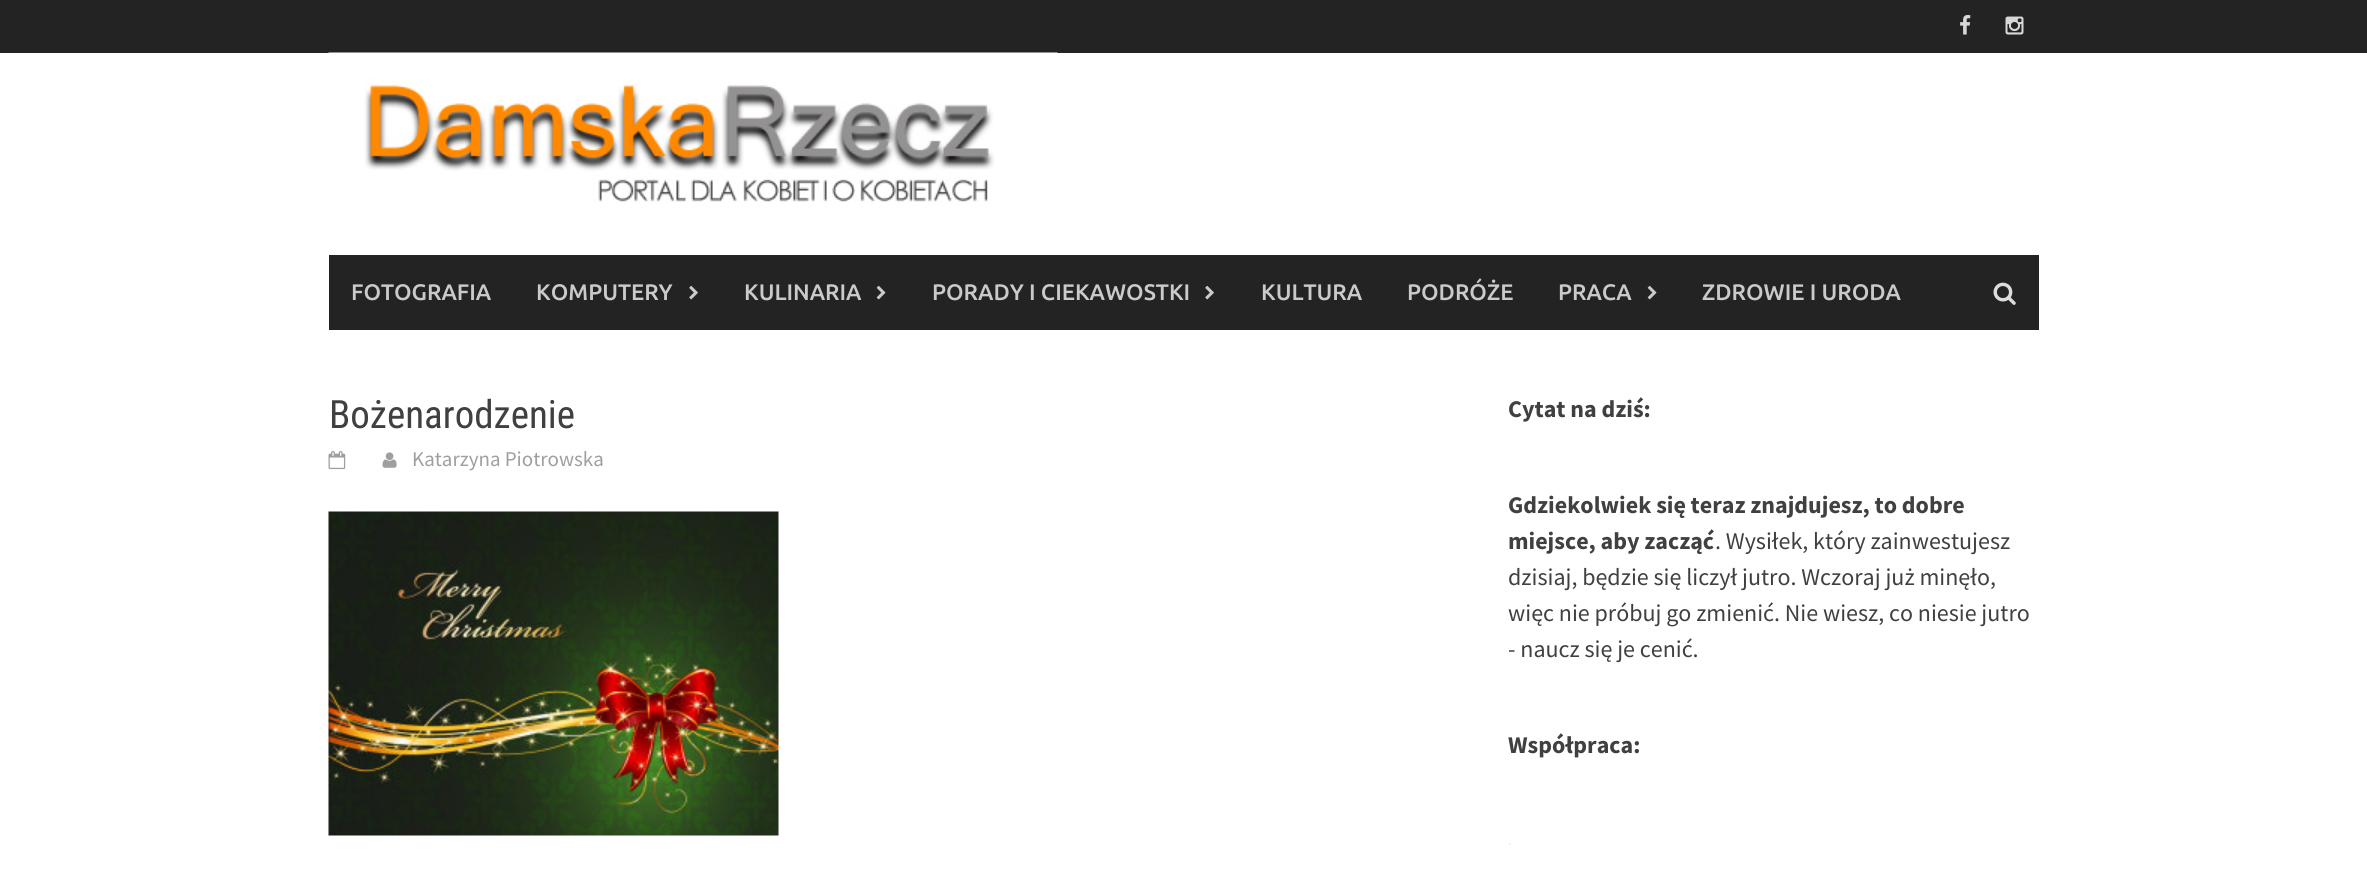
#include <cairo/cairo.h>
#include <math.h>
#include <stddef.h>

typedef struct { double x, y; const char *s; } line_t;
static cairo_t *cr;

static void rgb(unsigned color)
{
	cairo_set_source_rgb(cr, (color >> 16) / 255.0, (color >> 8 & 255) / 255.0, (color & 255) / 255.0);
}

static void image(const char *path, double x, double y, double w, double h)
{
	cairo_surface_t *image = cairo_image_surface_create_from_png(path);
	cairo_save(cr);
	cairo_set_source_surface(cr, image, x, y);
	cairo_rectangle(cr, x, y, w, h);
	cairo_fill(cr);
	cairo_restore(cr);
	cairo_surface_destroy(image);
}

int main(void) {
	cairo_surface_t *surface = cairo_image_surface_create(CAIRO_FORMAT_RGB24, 2367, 871);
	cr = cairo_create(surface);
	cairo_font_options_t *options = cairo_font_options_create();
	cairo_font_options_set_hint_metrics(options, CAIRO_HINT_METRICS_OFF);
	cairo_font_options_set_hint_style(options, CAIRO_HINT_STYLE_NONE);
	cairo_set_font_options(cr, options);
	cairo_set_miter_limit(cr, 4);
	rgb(0xffffff);
	cairo_paint(cr);
	rgb(0x232323);
	cairo_rectangle(cr, 0, 0, 2367, 53);
	cairo_fill(cr);
	image("img/1.png", 1960, 15, 11, 20);
	image("img/2.png", 2005, 16, 19, 19);
	image("img/3.png", 328, 52, 730, 150);
	cairo_rectangle(cr, 329, 255, 1710, 75);
	cairo_fill(cr);
	image("img/4.png", 689, 285, 9, 15);
	image("img/5.png", 876, 285, 10, 15);
	image("img/4.png", 1205, 285, 9, 15);
	image("img/5.png", 1647, 285, 10, 15);
	image("img/6.png", 1993, 282, 23, 23);
	image("img/7.png", 328, 451, 18, 19);
	image("img/8.png", 382, 452, 15, 16);
	image("img/9.png", 328, 511, 451, 325);
	image("img/10.png", 1509, 843, 2, 2);
	cairo_select_font_face(cr, "Ubuntu Medium", CAIRO_FONT_SLANT_NORMAL, CAIRO_FONT_WEIGHT_NORMAL);
	cairo_set_font_size(cr, 22.5);
	rgb(0xcacaca);
	{
		static const line_t items[] = {
			{351, 300, "FOTOGRAFIA"},
			{536, 300, "KOMPUTERY"},
			{744, 300, "KULINARIA"},
			{932, 300, "PORADY I CIEKAWOSTKI"},
			{1261, 300, "KULTURA"},
			{1407, 300, "PODRÓŻE"},
			{1558, 300, "PRACA"},
			{1702, 300, "ZDROWIE I URODA"},
		};
		for (size_t i = 0; i < sizeof items / sizeof *items; i++) {
			cairo_move_to(cr, items[i].x, items[i].y);
			cairo_show_text(cr, items[i].s);
		}
	}
	cairo_select_font_face(cr, "Roboto Condensed", CAIRO_FONT_SLANT_NORMAL, CAIRO_FONT_WEIGHT_NORMAL);
	cairo_set_font_size(cr, 39);
	rgb(0x404040);
	cairo_move_to(cr, 329, 428);
	cairo_show_text(cr, "Bożenarodzenie");
	cairo_select_font_face(cr, "Source Sans Pro", CAIRO_FONT_SLANT_NORMAL, CAIRO_FONT_WEIGHT_NORMAL);
	cairo_set_font_size(cr, 21);
	rgb(0x9f9f9f);
	cairo_move_to(cr, 412, 466);
	cairo_show_text(cr, "Katarzyna Piotrowska");
	cairo_select_font_face(cr, "Source Sans Pro", CAIRO_FONT_SLANT_NORMAL, CAIRO_FONT_WEIGHT_BOLD);
	cairo_set_font_size(cr, 24);
	rgb(0x404040);
	{
		static const line_t items[] = {
			{1508, 417, "Cytat na dziś:"},
			{1508, 513, "Gdziekolwiek się teraz znajdujesz, to dobre"},
			{1508, 549, "miejsce, aby zacząć"},
		};
		for (size_t i = 0; i < sizeof items / sizeof *items; i++) {
			cairo_move_to(cr, items[i].x, items[i].y);
			cairo_show_text(cr, items[i].s);
		}
	}
	cairo_select_font_face(cr, "Source Sans Pro", CAIRO_FONT_SLANT_NORMAL, CAIRO_FONT_WEIGHT_NORMAL);
	{
		static const line_t items[] = {
			{1715, 549, ". Wysiłek, który zainwestujesz"},
			{1508, 585, "dzisiaj, będzie się liczył jutro. Wczoraj już minęło,"},
			{1508, 621, "więc nie próbuj go zmienić. Nie wiesz, co niesie jutro"},
			{1508, 657, "- naucz się je cenić."},
		};
		for (size_t i = 0; i < sizeof items / sizeof *items; i++) {
			cairo_move_to(cr, items[i].x, items[i].y);
			cairo_show_text(cr, items[i].s);
		}
	}
	cairo_select_font_face(cr, "Source Sans Pro", CAIRO_FONT_SLANT_NORMAL, CAIRO_FONT_WEIGHT_BOLD);
	cairo_move_to(cr, 1508, 753);
	cairo_show_text(cr, "Współpraca:");
	cairo_surface_write_to_png(surface, "page.png");
	cairo_font_options_destroy(options);
	cairo_destroy(cr);
	cairo_surface_destroy(surface);
	return 0;
}
